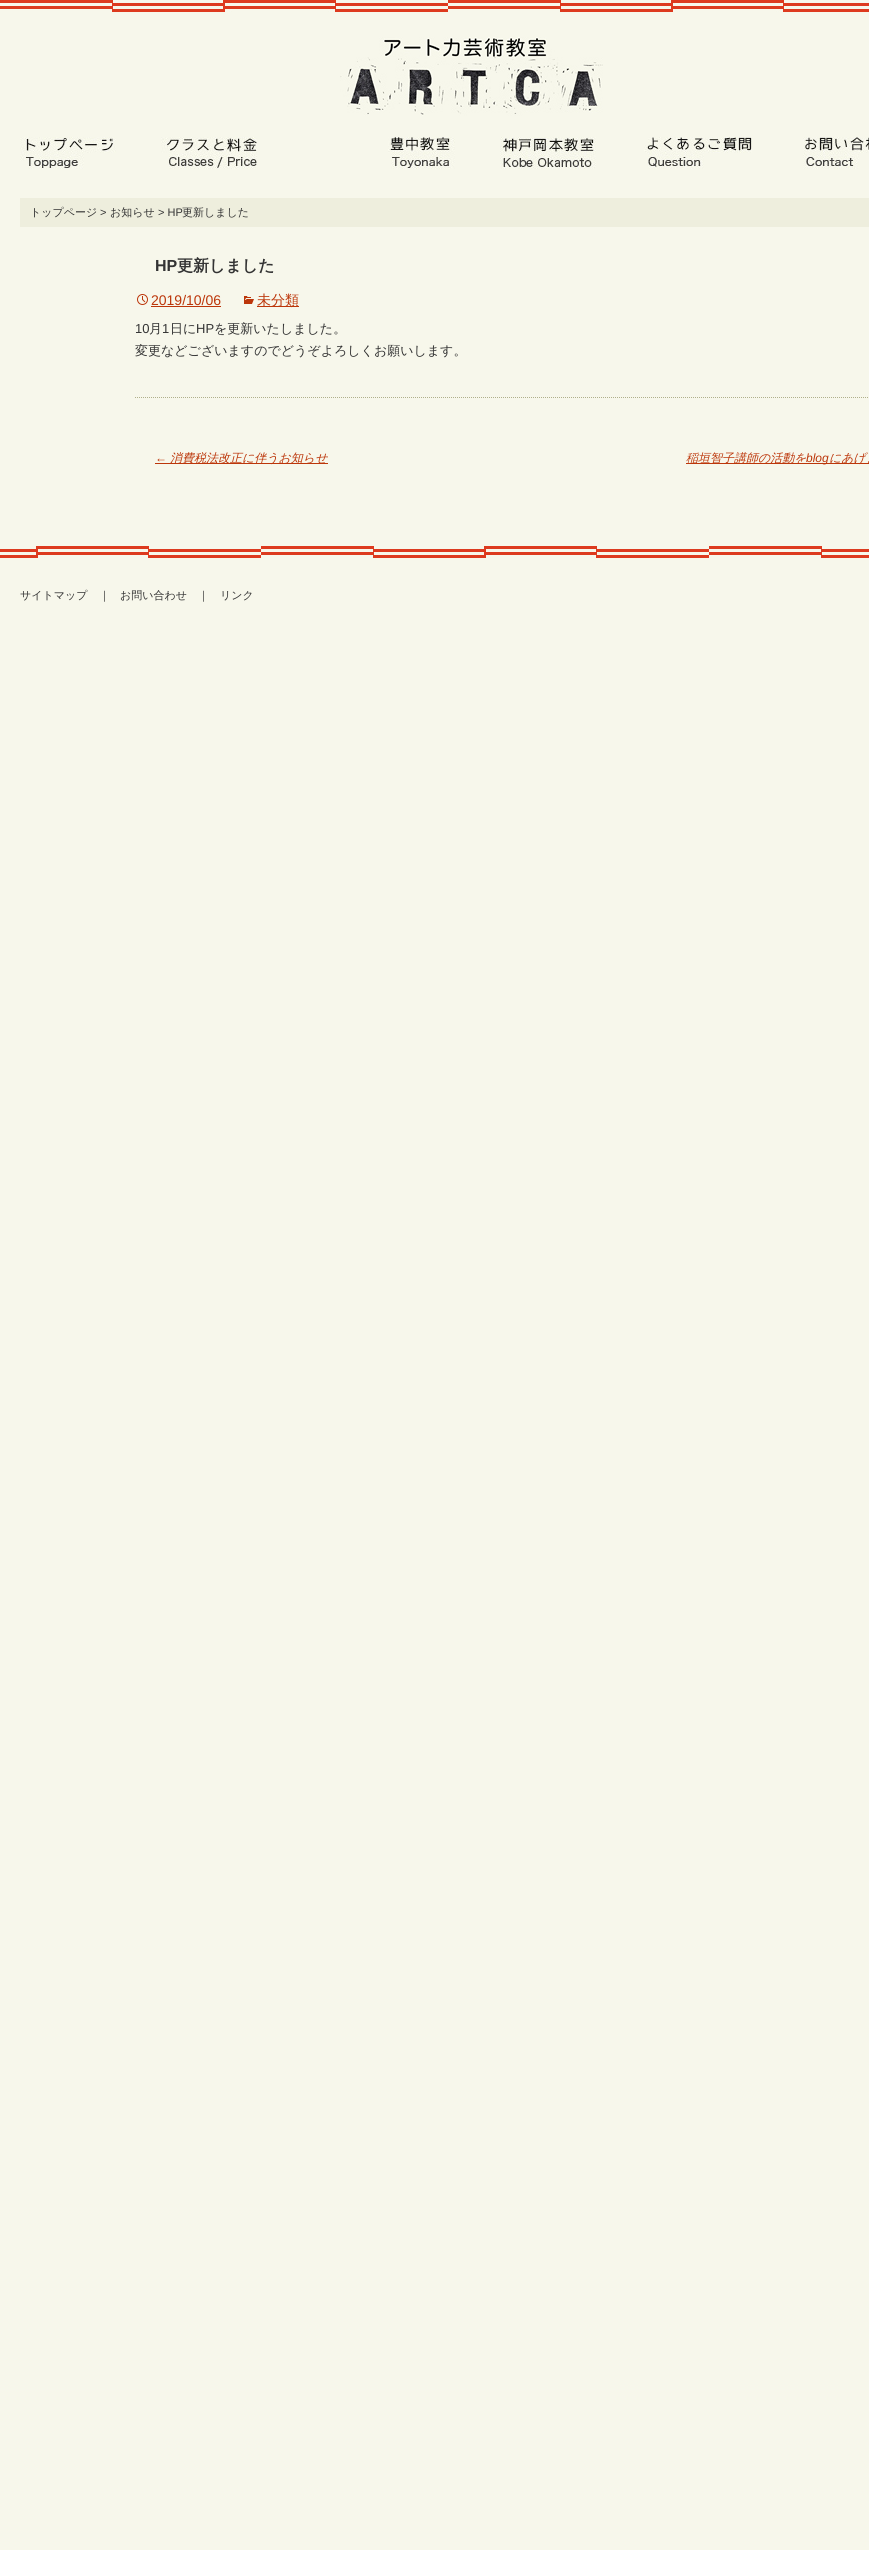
#include <cairo/cairo.h>
#include <math.h>
#include <stddef.h>

typedef struct { double x, y; const char *s; } line_t;
typedef struct { double x, y, w, h; unsigned color; } box_t;
static cairo_t *cr;

static void rgb(unsigned color)
{
	cairo_set_source_rgb(cr, (color >> 16) / 255.0, (color >> 8 & 255) / 255.0, (color & 255) / 255.0);
}

static void image(const char *path, double x, double y, double w, double h)
{
	cairo_surface_t *image = cairo_image_surface_create_from_png(path);
	cairo_save(cr);
	cairo_set_source_surface(cr, image, x, y);
	cairo_rectangle(cr, x, y, w, h);
	cairo_fill(cr);
	cairo_restore(cr);
	cairo_surface_destroy(image);
}

int main(void) {
	cairo_surface_t *surface = cairo_image_surface_create(CAIRO_FORMAT_RGB24, 869, 2550);
	cr = cairo_create(surface);
	cairo_font_options_t *options = cairo_font_options_create();
	cairo_font_options_set_hint_metrics(options, CAIRO_HINT_METRICS_OFF);
	cairo_font_options_set_hint_style(options, CAIRO_HINT_STYLE_NONE);
	cairo_set_font_options(cr, options);
	cairo_set_miter_limit(cr, 4);
	rgb(0xf7f7eb);
	cairo_paint(cr);
	image("img/1.png", 0, 0, 869, 12);
	image("img/2.png", 340, 37, 263, 79);
	image("img/3.png", 20, 137, 96, 32);
	image("img/4.png", 161, 137, 96, 32);
	image("img/5.png", 388, 137, 67, 32);
	image("img/6.png", 500, 137, 96, 32);
	image("img/7.png", 644, 137, 108, 32);
	image("img/8.png", 803, 137, 66, 32);
	rgb(0xeeeedd);
	cairo_rectangle(cr, 20, 198, 849, 29);
	cairo_fill(cr);
	cairo_new_path(cr);
	cairo_move_to(cr, 135, 397.5);
	cairo_line_to(cr, 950, 397.5);
	rgb(0xb0b08b);
	cairo_set_line_width(cr, 1);
	cairo_set_dash(cr, (double[]){1, 1}, 2, 0);
	cairo_stroke(cr);
	image("img/9.png", 137, 294, 11, 11);
	rgb(0xbc360a);
	cairo_rectangle(cr, 151, 306, 70, 1);
	cairo_fill(cr);
	image("img/10.png", 244, 296, 10, 8);
	{
		static const box_t items[] = {
			{257, 306, 42, 1, 0xbc360a},
			{155, 463, 173, 1, 0xbc360a},
			{686, 463, 183, 1, 0xbc360a},
		};
		for (size_t i = 0; i < sizeof items / sizeof *items; i++) {
			rgb(items[i].color);
			cairo_rectangle(cr, items[i].x, items[i].y, items[i].w, items[i].h);
			cairo_fill(cr);
		}
	}
	image("img/11.png", 0, 546, 869, 12);
	cairo_select_font_face(cr, "WenQuanYi Zen Hei Medium", CAIRO_FONT_SLANT_NORMAL, CAIRO_FONT_WEIGHT_NORMAL);
	cairo_set_font_size(cr, 11);
	rgb(0x333333);
	cairo_move_to(cr, 30, 216);
	cairo_show_text(cr, "トップページ");
	cairo_select_font_face(cr, "Liberation Sans", CAIRO_FONT_SLANT_NORMAL, CAIRO_FONT_WEIGHT_NORMAL);
	cairo_move_to(cr, 100, 216);
	cairo_show_text(cr, ">");
	cairo_select_font_face(cr, "WenQuanYi Zen Hei Medium", CAIRO_FONT_SLANT_NORMAL, CAIRO_FONT_WEIGHT_NORMAL);
	cairo_move_to(cr, 110, 216);
	cairo_show_text(cr, "お知らせ");
	cairo_select_font_face(cr, "Liberation Sans", CAIRO_FONT_SLANT_NORMAL, CAIRO_FONT_WEIGHT_NORMAL);
	cairo_move_to(cr, 158, 216);
	cairo_show_text(cr, "> HP");
	cairo_select_font_face(cr, "WenQuanYi Zen Hei Medium", CAIRO_FONT_SLANT_NORMAL, CAIRO_FONT_WEIGHT_NORMAL);
	cairo_move_to(cr, 182, 216);
	cairo_show_text(cr, "更新しました");
	cairo_select_font_face(cr, "Liberation Sans", CAIRO_FONT_SLANT_NORMAL, CAIRO_FONT_WEIGHT_BOLD);
	cairo_set_font_size(cr, 16);
	cairo_move_to(cr, 155, 271);
	cairo_show_text(cr, "HP");
	cairo_select_font_face(cr, "WenQuanYi Zen Hei", CAIRO_FONT_SLANT_NORMAL, CAIRO_FONT_WEIGHT_BOLD);
	cairo_move_to(cr, 177, 271);
	cairo_show_text(cr, "更新しました");
	cairo_select_font_face(cr, "Liberation Sans", CAIRO_FONT_SLANT_NORMAL, CAIRO_FONT_WEIGHT_NORMAL);
	cairo_set_font_size(cr, 14);
	rgb(0xbc360a);
	cairo_move_to(cr, 151, 305);
	cairo_show_text(cr, "2019/10/06");
	cairo_select_font_face(cr, "WenQuanYi Zen Hei Medium", CAIRO_FONT_SLANT_NORMAL, CAIRO_FONT_WEIGHT_NORMAL);
	cairo_move_to(cr, 257, 305);
	cairo_show_text(cr, "未分類");
	cairo_select_font_face(cr, "Liberation Sans", CAIRO_FONT_SLANT_NORMAL, CAIRO_FONT_WEIGHT_NORMAL);
	cairo_set_font_size(cr, 13);
	rgb(0x333333);
	cairo_move_to(cr, 135, 333);
	cairo_show_text(cr, "10");
	cairo_select_font_face(cr, "WenQuanYi Zen Hei Medium", CAIRO_FONT_SLANT_NORMAL, CAIRO_FONT_WEIGHT_NORMAL);
	cairo_move_to(cr, 149, 333);
	cairo_show_text(cr, "月");
	cairo_select_font_face(cr, "Liberation Sans", CAIRO_FONT_SLANT_NORMAL, CAIRO_FONT_WEIGHT_NORMAL);
	cairo_move_to(cr, 162, 333);
	cairo_show_text(cr, "1");
	cairo_select_font_face(cr, "WenQuanYi Zen Hei Medium", CAIRO_FONT_SLANT_NORMAL, CAIRO_FONT_WEIGHT_NORMAL);
	cairo_move_to(cr, 170, 333);
	cairo_show_text(cr, "日に");
	cairo_select_font_face(cr, "Liberation Sans", CAIRO_FONT_SLANT_NORMAL, CAIRO_FONT_WEIGHT_NORMAL);
	cairo_move_to(cr, 196, 333);
	cairo_show_text(cr, "HP");
	cairo_select_font_face(cr, "WenQuanYi Zen Hei Medium", CAIRO_FONT_SLANT_NORMAL, CAIRO_FONT_WEIGHT_NORMAL);
	cairo_move_to(cr, 214, 333);
	cairo_show_text(cr, "を更新いたしました。");
	cairo_move_to(cr, 135, 355);
	cairo_show_text(cr, "変更などございますのでどうぞよろしくお願いします。");
	cairo_select_font_face(cr, "Liberation Sans", CAIRO_FONT_SLANT_ITALIC, CAIRO_FONT_WEIGHT_NORMAL);
	cairo_set_font_size(cr, 12);
	rgb(0xbc360a);
	cairo_move_to(cr, 155, 462);
	cairo_show_text(cr, "←");
	cairo_select_font_face(cr, "WenQuanYi Zen Hei Medium", CAIRO_FONT_SLANT_ITALIC, CAIRO_FONT_WEIGHT_NORMAL);
	cairo_move_to(cr, 170, 462);
	cairo_show_text(cr, "消費税法改正に伴うお知らせ");
	cairo_move_to(cr, 686, 462);
	cairo_show_text(cr, "稲垣智子講師の活動を");
	cairo_select_font_face(cr, "Liberation Sans", CAIRO_FONT_SLANT_ITALIC, CAIRO_FONT_WEIGHT_NORMAL);
	cairo_move_to(cr, 806, 462);
	cairo_show_text(cr, "blog");
	cairo_select_font_face(cr, "WenQuanYi Zen Hei Medium", CAIRO_FONT_SLANT_ITALIC, CAIRO_FONT_WEIGHT_NORMAL);
	cairo_move_to(cr, 829, 462);
	cairo_show_text(cr, "にあげま");
	cairo_select_font_face(cr, "WenQuanYi Zen Hei Medium", CAIRO_FONT_SLANT_NORMAL, CAIRO_FONT_WEIGHT_NORMAL);
	cairo_set_font_size(cr, 11);
	rgb(0x333333);
	{
		static const line_t items[] = {
			{20, 599, "サイトマップ"},
			{99, 599, "｜"},
			{120, 599, "お問い合わせ"},
			{198, 599, "｜"},
			{220, 599, "リンク"},
		};
		for (size_t i = 0; i < sizeof items / sizeof *items; i++) {
			cairo_move_to(cr, items[i].x, items[i].y);
			cairo_show_text(cr, items[i].s);
		}
	}
	cairo_surface_write_to_png(surface, "page.png");
	cairo_font_options_destroy(options);
	cairo_destroy(cr);
	cairo_surface_destroy(surface);
	return 0;
}
